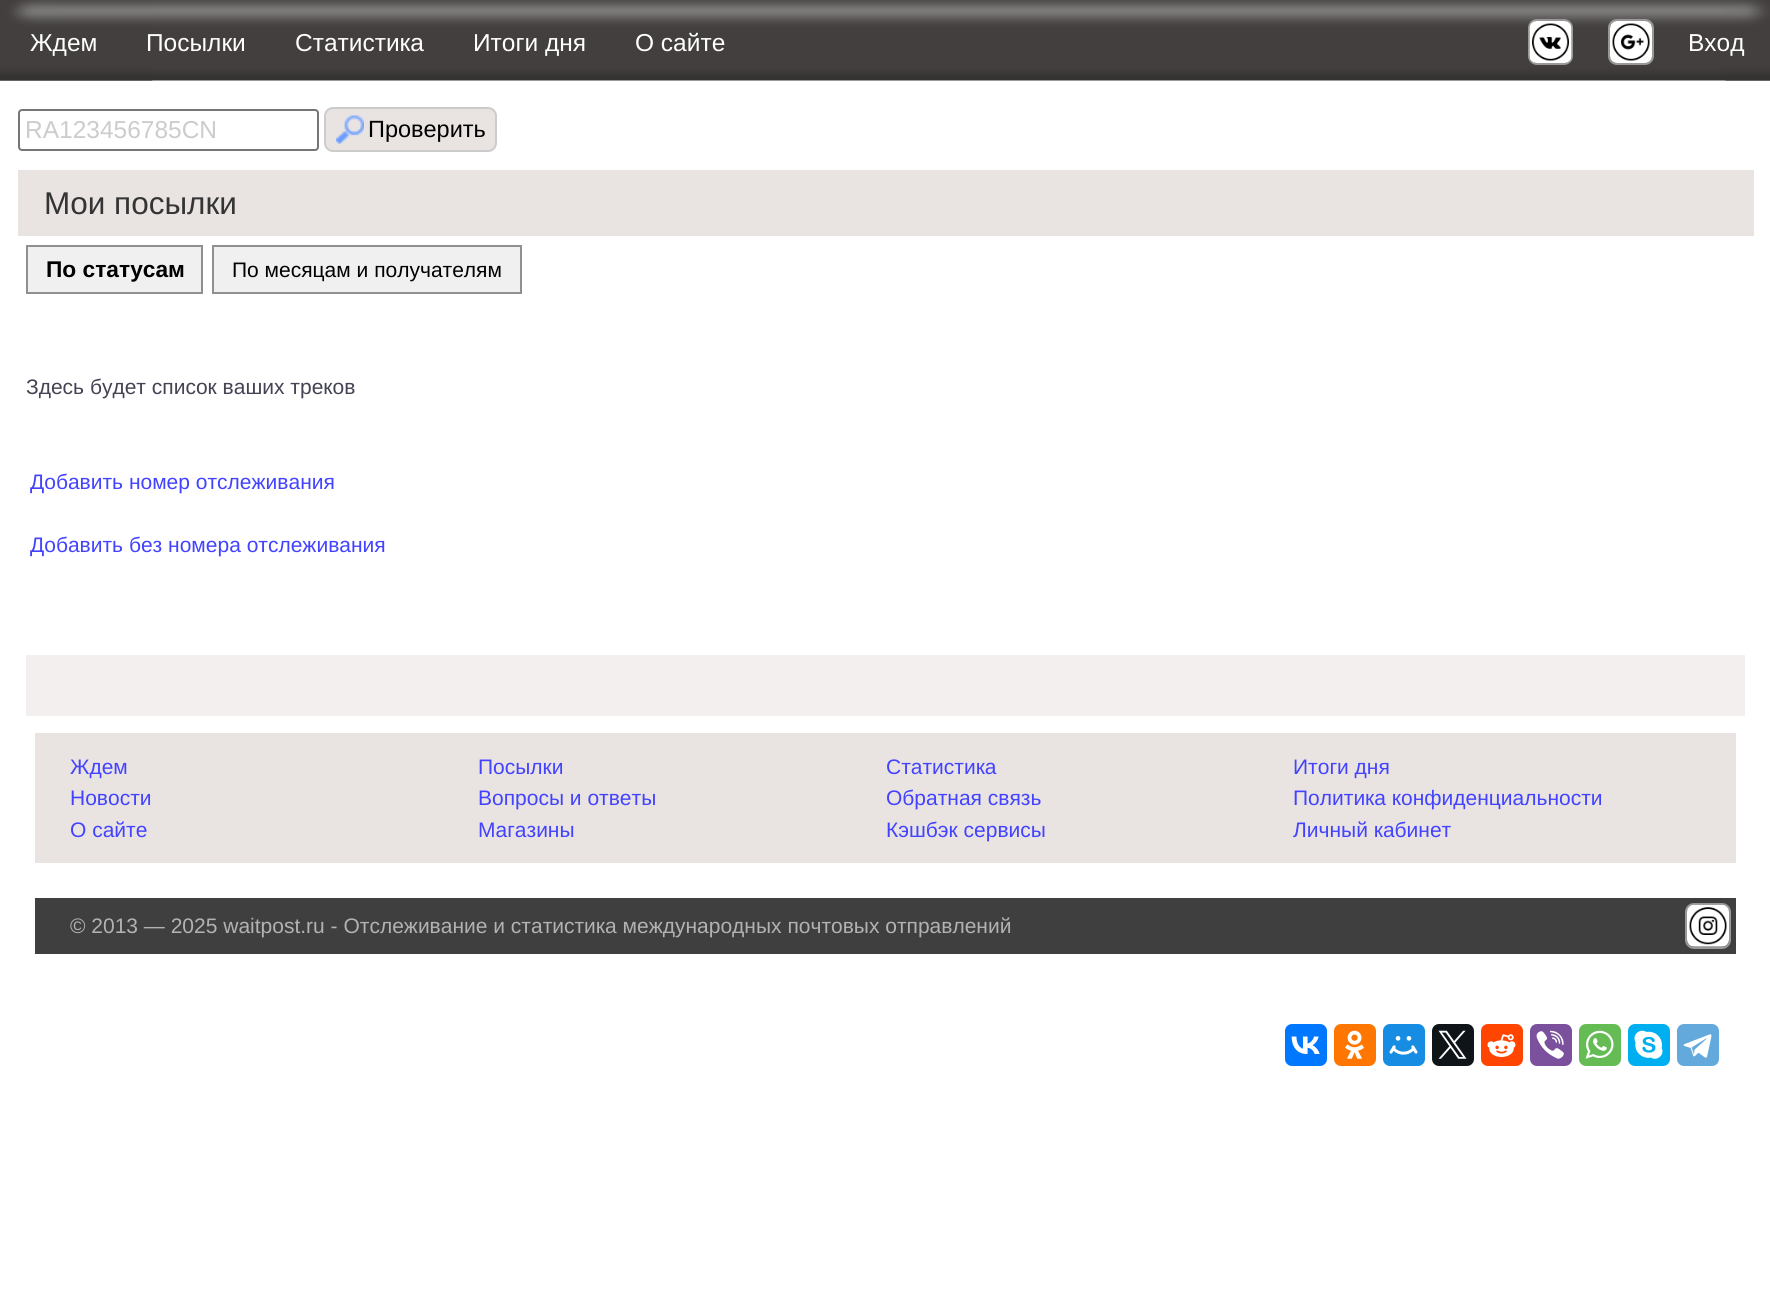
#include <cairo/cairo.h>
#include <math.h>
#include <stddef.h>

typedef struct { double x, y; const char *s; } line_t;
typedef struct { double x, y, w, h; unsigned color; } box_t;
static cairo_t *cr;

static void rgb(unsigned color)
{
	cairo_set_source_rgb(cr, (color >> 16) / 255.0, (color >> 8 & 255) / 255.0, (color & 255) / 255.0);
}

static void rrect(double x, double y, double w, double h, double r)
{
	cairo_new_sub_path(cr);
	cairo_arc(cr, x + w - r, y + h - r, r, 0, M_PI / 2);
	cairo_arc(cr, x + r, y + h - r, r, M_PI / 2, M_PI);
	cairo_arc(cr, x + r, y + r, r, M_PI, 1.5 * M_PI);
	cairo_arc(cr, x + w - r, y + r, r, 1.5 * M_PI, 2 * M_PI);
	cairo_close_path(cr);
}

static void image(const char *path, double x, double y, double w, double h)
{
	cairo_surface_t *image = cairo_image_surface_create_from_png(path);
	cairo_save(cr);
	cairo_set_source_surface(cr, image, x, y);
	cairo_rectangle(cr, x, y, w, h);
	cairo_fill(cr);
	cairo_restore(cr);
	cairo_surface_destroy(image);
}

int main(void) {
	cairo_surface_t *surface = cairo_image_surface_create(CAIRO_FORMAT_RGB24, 1770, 1304);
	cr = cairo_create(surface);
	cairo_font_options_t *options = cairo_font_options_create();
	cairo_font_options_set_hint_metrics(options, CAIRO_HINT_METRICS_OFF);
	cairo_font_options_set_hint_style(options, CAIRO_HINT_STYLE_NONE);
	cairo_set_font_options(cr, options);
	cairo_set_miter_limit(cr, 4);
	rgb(0xffffff);
	cairo_paint(cr);
	image("img/1.png", 0, 0, 1770, 81);
	image("img/2.png", 0, 0, 153, 81);
	image("img/3.png", 1725, 0, 45, 81);
	rrect(1529, 20, 43, 44, 8);
	rgb(0x999999);
	cairo_stroke(cr);
	image("img/4.png", 1529, 21, 43, 42);
	rrect(1609, 20, 44, 44, 8);
	cairo_stroke(cr);
	image("img/5.png", 1610, 21, 42, 42);
	rrect(19, 110, 299, 40, 3);
	rgb(0x767676);
	cairo_stroke(cr);
	rgb(0xe9e4e2);
	rrect(325, 108, 171, 43, 8);
	cairo_fill_preserve(cr);
	rgb(0xcccccc);
	cairo_stroke(cr);
	image("img/6.png", 336, 115, 28, 29);
	rgb(0xe9e4e2);
	cairo_rectangle(cr, 18, 170, 1736, 66);
	cairo_fill(cr);
	rgb(0xf0f0f0);
	cairo_rectangle(cr, 27, 246, 175, 47);
	cairo_fill_preserve(cr);
	rgb(0x909090);
	cairo_stroke(cr);
	rgb(0xf0f0f0);
	cairo_rectangle(cr, 213, 246, 308, 47);
	cairo_fill_preserve(cr);
	rgb(0x909090);
	cairo_stroke(cr);
	{
		static const box_t items[] = {
			{26, 655, 1719, 61, 0xf2efee},
			{35, 733, 1701, 130, 0xe9e4e2},
			{35, 898, 1701, 56, 0x3f3f3f},
		};
		for (size_t i = 0; i < sizeof items / sizeof *items; i++) {
			rgb(items[i].color);
			cairo_rectangle(cr, items[i].x, items[i].y, items[i].w, items[i].h);
			cairo_fill(cr);
		}
	}
	rrect(1686, 904, 44, 44, 8);
	rgb(0x999999);
	cairo_stroke(cr);
	image("img/7.png", 1687, 904, 42, 43);
	rgb(0x0077ff);
	rrect(1285, 1024, 42, 42, 7);
	cairo_fill(cr);
	image("img/8.png", 1291, 1036, 29, 18);
	rgb(0xff7700);
	rrect(1334, 1024, 42, 42, 7);
	cairo_fill(cr);
	image("img/9.png", 1345, 1030, 19, 29);
	rgb(0x168de2);
	rrect(1383, 1024, 42, 42, 7);
	cairo_fill(cr);
	image("img/10.png", 1389, 1036, 29, 19);
	rgb(0x0f1419);
	rrect(1432, 1024, 42, 42, 7);
	cairo_fill(cr);
	image("img/11.png", 1438, 1030, 29, 29);
	rgb(0xff4500);
	rrect(1481, 1024, 42, 42, 7);
	cairo_fill(cr);
	image("img/12.png", 1487, 1034, 29, 23);
	rgb(0x7b519d);
	rrect(1530, 1024, 42, 42, 7);
	cairo_fill(cr);
	image("img/13.png", 1536, 1030, 28, 29);
	rgb(0x65bc54);
	rrect(1579, 1024, 42, 42, 7);
	cairo_fill(cr);
	image("img/14.png", 1585, 1030, 29, 29);
	rgb(0x00aff0);
	rrect(1628, 1024, 42, 42, 7);
	cairo_fill(cr);
	image("img/15.png", 1634, 1030, 29, 29);
	rgb(0x64a9dc);
	rrect(1677, 1024, 42, 42, 7);
	cairo_fill(cr);
	image("img/16.png", 1683, 1034, 29, 24);
	cairo_select_font_face(cr, "Liberation Sans", CAIRO_FONT_SLANT_NORMAL, CAIRO_FONT_WEIGHT_NORMAL);
	cairo_set_font_size(cr, 24.5);
	rgb(0xffffff);
	{
		static const line_t items[] = {
			{30, 51, "Ждем"},
			{146, 51, "Посылки"},
			{295, 51, "Статистика"},
			{473, 51, "Итоги дня"},
			{635, 51, "О сайте"},
			{1688, 51, "Вход"},
		};
		for (size_t i = 0; i < sizeof items / sizeof *items; i++) {
			cairo_move_to(cr, items[i].x, items[i].y);
			cairo_show_text(cr, items[i].s);
		}
	}
	rgb(0xcccccc);
	cairo_move_to(cr, 25, 138);
	cairo_show_text(cr, "RA123456785CN");
	cairo_set_font_size(cr, 23.5);
	rgb(0x000000);
	cairo_move_to(cr, 368, 137);
	cairo_show_text(cr, "Проверить");
	cairo_set_font_size(cr, 31.5);
	rgb(0x343434);
	cairo_move_to(cr, 44, 214);
	cairo_show_text(cr, "Мои посылки");
	cairo_select_font_face(cr, "Liberation Sans", CAIRO_FONT_SLANT_NORMAL, CAIRO_FONT_WEIGHT_BOLD);
	cairo_set_font_size(cr, 22.75);
	rgb(0x000000);
	cairo_move_to(cr, 46, 277);
	cairo_show_text(cr, "По статусам");
	cairo_select_font_face(cr, "Liberation Sans", CAIRO_FONT_SLANT_NORMAL, CAIRO_FONT_WEIGHT_NORMAL);
	cairo_set_font_size(cr, 21);
	cairo_move_to(cr, 232, 277);
	cairo_show_text(cr, "По месяцам и получателям");
	rgb(0x434353);
	cairo_move_to(cr, 26, 394);
	cairo_show_text(cr, "Здесь будет список ваших треков");
	rgb(0x4343ff);
	{
		static const line_t items[] = {
			{30, 489, "Добавить номер отслеживания"},
			{30, 552, "Добавить без номера отслеживания"},
			{70, 774, "Ждем"},
			{478, 774, "Посылки"},
			{886, 774, "Статистика"},
			{1293, 774, "Итоги дня"},
			{70, 805, "Новости"},
			{478, 805, "Вопросы и ответы"},
			{886, 805, "Обратная связь"},
			{1293, 805, "Политика конфиденциальности"},
			{70, 837, "О сайте"},
			{478, 837, "Магазины"},
			{886, 837, "Кэшбэк сервисы"},
			{1293, 837, "Личный кабинет"},
		};
		for (size_t i = 0; i < sizeof items / sizeof *items; i++) {
			cairo_move_to(cr, items[i].x, items[i].y);
			cairo_show_text(cr, items[i].s);
		}
	}
	rgb(0xb2b2b2);
	cairo_move_to(cr, 70, 933);
	cairo_show_text(cr, "© 2013 — 2025 waitpost.ru - Отслеживание и статистика международных почтовых отправлений");
	cairo_surface_write_to_png(surface, "page.png");
	cairo_font_options_destroy(options);
	cairo_destroy(cr);
	cairo_surface_destroy(surface);
	return 0;
}
